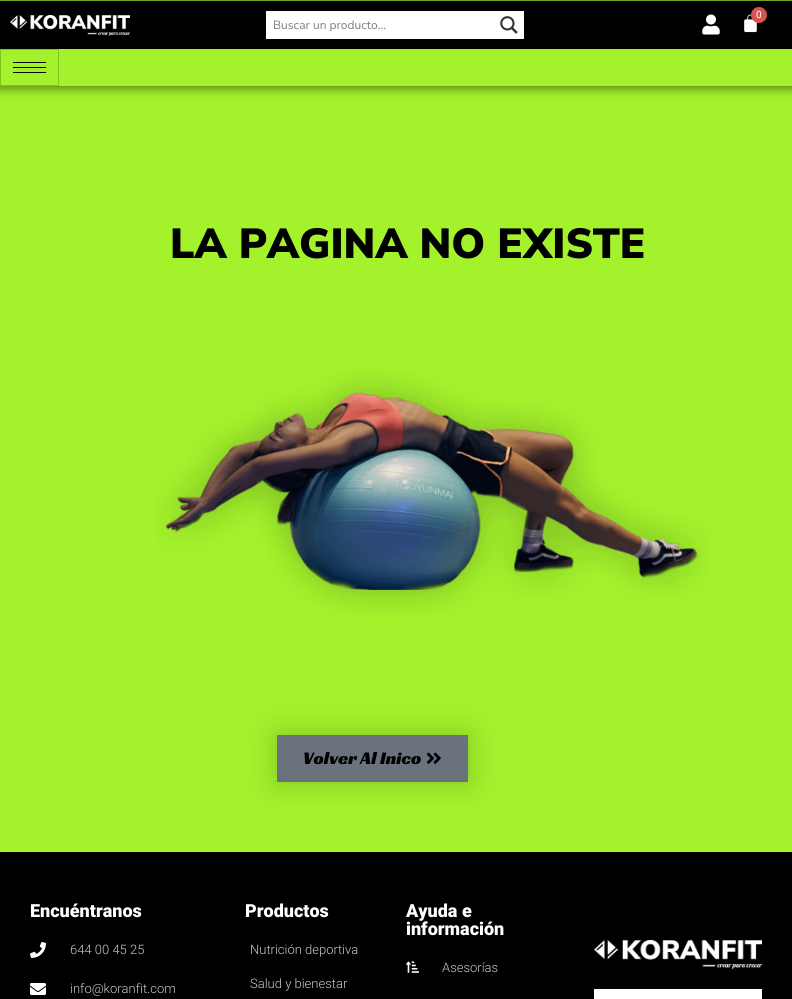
#include <cairo/cairo.h>
#include <math.h>
#include <stddef.h>

typedef struct { double x, y, w, h; unsigned color; } box_t;
static cairo_t *cr;

static void rgb(unsigned color)
{
	cairo_set_source_rgb(cr, (color >> 16) / 255.0, (color >> 8 & 255) / 255.0, (color & 255) / 255.0);
}

static void rrect(double x, double y, double w, double h, double r)
{
	cairo_new_sub_path(cr);
	cairo_arc(cr, x + w - r, y + h - r, r, 0, M_PI / 2);
	cairo_arc(cr, x + r, y + h - r, r, M_PI / 2, M_PI);
	cairo_arc(cr, x + r, y + r, r, M_PI, 1.5 * M_PI);
	cairo_arc(cr, x + w - r, y + r, r, 1.5 * M_PI, 2 * M_PI);
	cairo_close_path(cr);
}

static void soft_shadow(double x, double y, double w, double h, double r, double blur, double alpha)
{
	cairo_push_group_with_content(cr, CAIRO_CONTENT_ALPHA);
	cairo_set_operator(cr, CAIRO_OPERATOR_SOURCE);
	for (int i = 15; i >= -15 && fmin(w, h) + blur * i / 3 > 0; i -= 2) {
		double e = blur * i / 6;
		cairo_set_source_rgba(cr, 0, 0, 0, alpha * erfc((i - 1) / 8.5) / 2);
		rrect(x - e, y - e, w + 2 * e, h + 2 * e, fmax(0, fmin(r + e + blur * .6, fmin(w, h) / 2 + e)));
		cairo_fill(cr);
	}
	cairo_pattern_t *soft = cairo_pop_group(cr);
	cairo_mask(cr, soft);
	cairo_pattern_destroy(soft);
}

static void image(const char *path, double x, double y, double w, double h)
{
	cairo_surface_t *image = cairo_image_surface_create_from_png(path);
	cairo_save(cr);
	cairo_set_source_surface(cr, image, x, y);
	cairo_rectangle(cr, x, y, w, h);
	cairo_fill(cr);
	cairo_restore(cr);
	cairo_surface_destroy(image);
}

int main(void) {
	cairo_surface_t *surface = cairo_image_surface_create(CAIRO_FORMAT_RGB24, 792, 999);
	cr = cairo_create(surface);
	cairo_font_options_t *options = cairo_font_options_create();
	cairo_font_options_set_hint_metrics(options, CAIRO_HINT_METRICS_OFF);
	cairo_font_options_set_hint_style(options, CAIRO_HINT_STYLE_NONE);
	cairo_set_font_options(cr, options);
	cairo_set_miter_limit(cr, 4);
	rgb(0xa3f22c);
	cairo_paint(cr);
	rgb(0x000000);
	soft_shadow(-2, -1, 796, 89, 0, 5.5, 0.5);
	rgb(0x000000);
	cairo_rectangle(cr, 0, 1, 792, 48);
	cairo_fill(cr);
	image("img/1.png", 10, 15, 120, 21);
	rgb(0xffffff);
	cairo_rectangle(cr, 266, 11, 258, 28);
	cairo_fill(cr);
	image("img/2.png", 500, 16, 18, 18);
	image("img/3.png", 702, 14, 18, 21);
	image("img/4.png", 744, 14, 13, 19);
	rgb(0xd9534f);
	cairo_arc(cr, 759, 15, 8, 0, 2 * M_PI);
	cairo_fill(cr);
	rgb(0xa3f22c);
	cairo_rectangle(cr, 1, 49, 791, 37);
	cairo_fill(cr);
	cairo_rectangle(cr, 0.5, 49.5, 58, 36);
	rgb(0x82c223);
	cairo_set_line_width(cr, 1);
	cairo_stroke(cr);
	{
		static const box_t items[] = {
			{13, 62, 33, 1, 0x000000},
			{13, 67, 33, 1, 0x000000},
			{13, 72, 33, 1, 0x000000},
		};
		for (size_t i = 0; i < sizeof items / sizeof *items; i++) {
			rgb(items[i].color);
			cairo_rectangle(cr, items[i].x, items[i].y, items[i].w, items[i].h);
			cairo_fill(cr);
		}
	}
	image("img/5.png", 156, 369, 554, 248);
	rgb(0x000000);
	soft_shadow(277, 735, 191, 47, 0, 15, 0.2);
	rgb(0x69727d);
	cairo_rectangle(cr, 277, 735, 191, 47);
	cairo_fill(cr);
	image("img/6.png", 426, 752, 15, 12);
	rgb(0x000000);
	cairo_rectangle(cr, 0, 852, 792, 147);
	cairo_fill(cr);
	image("img/7.png", 30, 942, 16, 16);
	image("img/8.png", 30, 983, 16, 12);
	image("img/9.png", 406, 961, 13, 12);
	image("img/10.png", 594, 940, 168, 29);
	rgb(0xffffff);
	cairo_rectangle(cr, 594, 989, 168, 10);
	cairo_fill(cr);
	cairo_select_font_face(cr, "Nunito Sans", CAIRO_FONT_SLANT_NORMAL, CAIRO_FONT_WEIGHT_NORMAL);
	cairo_set_font_size(cr, 12);
	rgb(0x7d7d7d);
	cairo_move_to(cr, 273, 29);
	cairo_show_text(cr, "Buscar un producto...");
	cairo_select_font_face(cr, "Roboto", CAIRO_FONT_SLANT_NORMAL, CAIRO_FONT_WEIGHT_NORMAL);
	cairo_set_font_size(cr, 10);
	rgb(0xffffff);
	cairo_move_to(cr, 756, 18);
	cairo_show_text(cr, "0");
	cairo_select_font_face(cr, "Nunito Sans Black", CAIRO_FONT_SLANT_NORMAL, CAIRO_FONT_WEIGHT_NORMAL);
	cairo_set_font_size(cr, 42);
	rgb(0x000000);
	cairo_move_to(cr, 170, 258);
	cairo_show_text(cr, "LA PAGINA NO EXISTE");
	cairo_select_font_face(cr, "Racing Sans One", CAIRO_FONT_SLANT_NORMAL, CAIRO_FONT_WEIGHT_NORMAL);
	cairo_set_font_size(cr, 18);
	cairo_move_to(cr, 303, 764);
	cairo_show_text(cr, "Volver Al Inico");
	cairo_select_font_face(cr, "Roboto Black", CAIRO_FONT_SLANT_NORMAL, CAIRO_FONT_WEIGHT_NORMAL);
	rgb(0xffffff);
	cairo_move_to(cr, 30, 917);
	cairo_show_text(cr, "Encuéntranos");
	cairo_select_font_face(cr, "Roboto Light", CAIRO_FONT_SLANT_NORMAL, CAIRO_FONT_WEIGHT_NORMAL);
	cairo_set_font_size(cr, 13);
	rgb(0xc9c9c9);
	cairo_move_to(cr, 70, 954);
	cairo_show_text(cr, "644 00 45 25");
	cairo_move_to(cr, 70, 993);
	cairo_show_text(cr, "info@koranfit.com");
	cairo_select_font_face(cr, "Roboto Black", CAIRO_FONT_SLANT_NORMAL, CAIRO_FONT_WEIGHT_NORMAL);
	cairo_set_font_size(cr, 18);
	rgb(0xffffff);
	cairo_move_to(cr, 245, 917);
	cairo_show_text(cr, "Productos");
	cairo_select_font_face(cr, "Roboto Light", CAIRO_FONT_SLANT_NORMAL, CAIRO_FONT_WEIGHT_NORMAL);
	cairo_set_font_size(cr, 13);
	rgb(0xc9c9c9);
	cairo_move_to(cr, 250, 954);
	cairo_show_text(cr, "Nutrición deportiva");
	cairo_move_to(cr, 250, 988);
	cairo_show_text(cr, "Salud y bienestar");
	cairo_select_font_face(cr, "Roboto Black", CAIRO_FONT_SLANT_NORMAL, CAIRO_FONT_WEIGHT_NORMAL);
	cairo_set_font_size(cr, 18);
	rgb(0xffffff);
	cairo_move_to(cr, 406, 917);
	cairo_show_text(cr, "Ayuda e");
	cairo_move_to(cr, 406, 935);
	cairo_show_text(cr, "información");
	cairo_select_font_face(cr, "Roboto Light", CAIRO_FONT_SLANT_NORMAL, CAIRO_FONT_WEIGHT_NORMAL);
	cairo_set_font_size(cr, 13);
	rgb(0xc9c9c9);
	cairo_move_to(cr, 442, 972);
	cairo_show_text(cr, "Asesorías");
	cairo_surface_write_to_png(surface, "page.png");
	cairo_font_options_destroy(options);
	cairo_destroy(cr);
	cairo_surface_destroy(surface);
	return 0;
}
